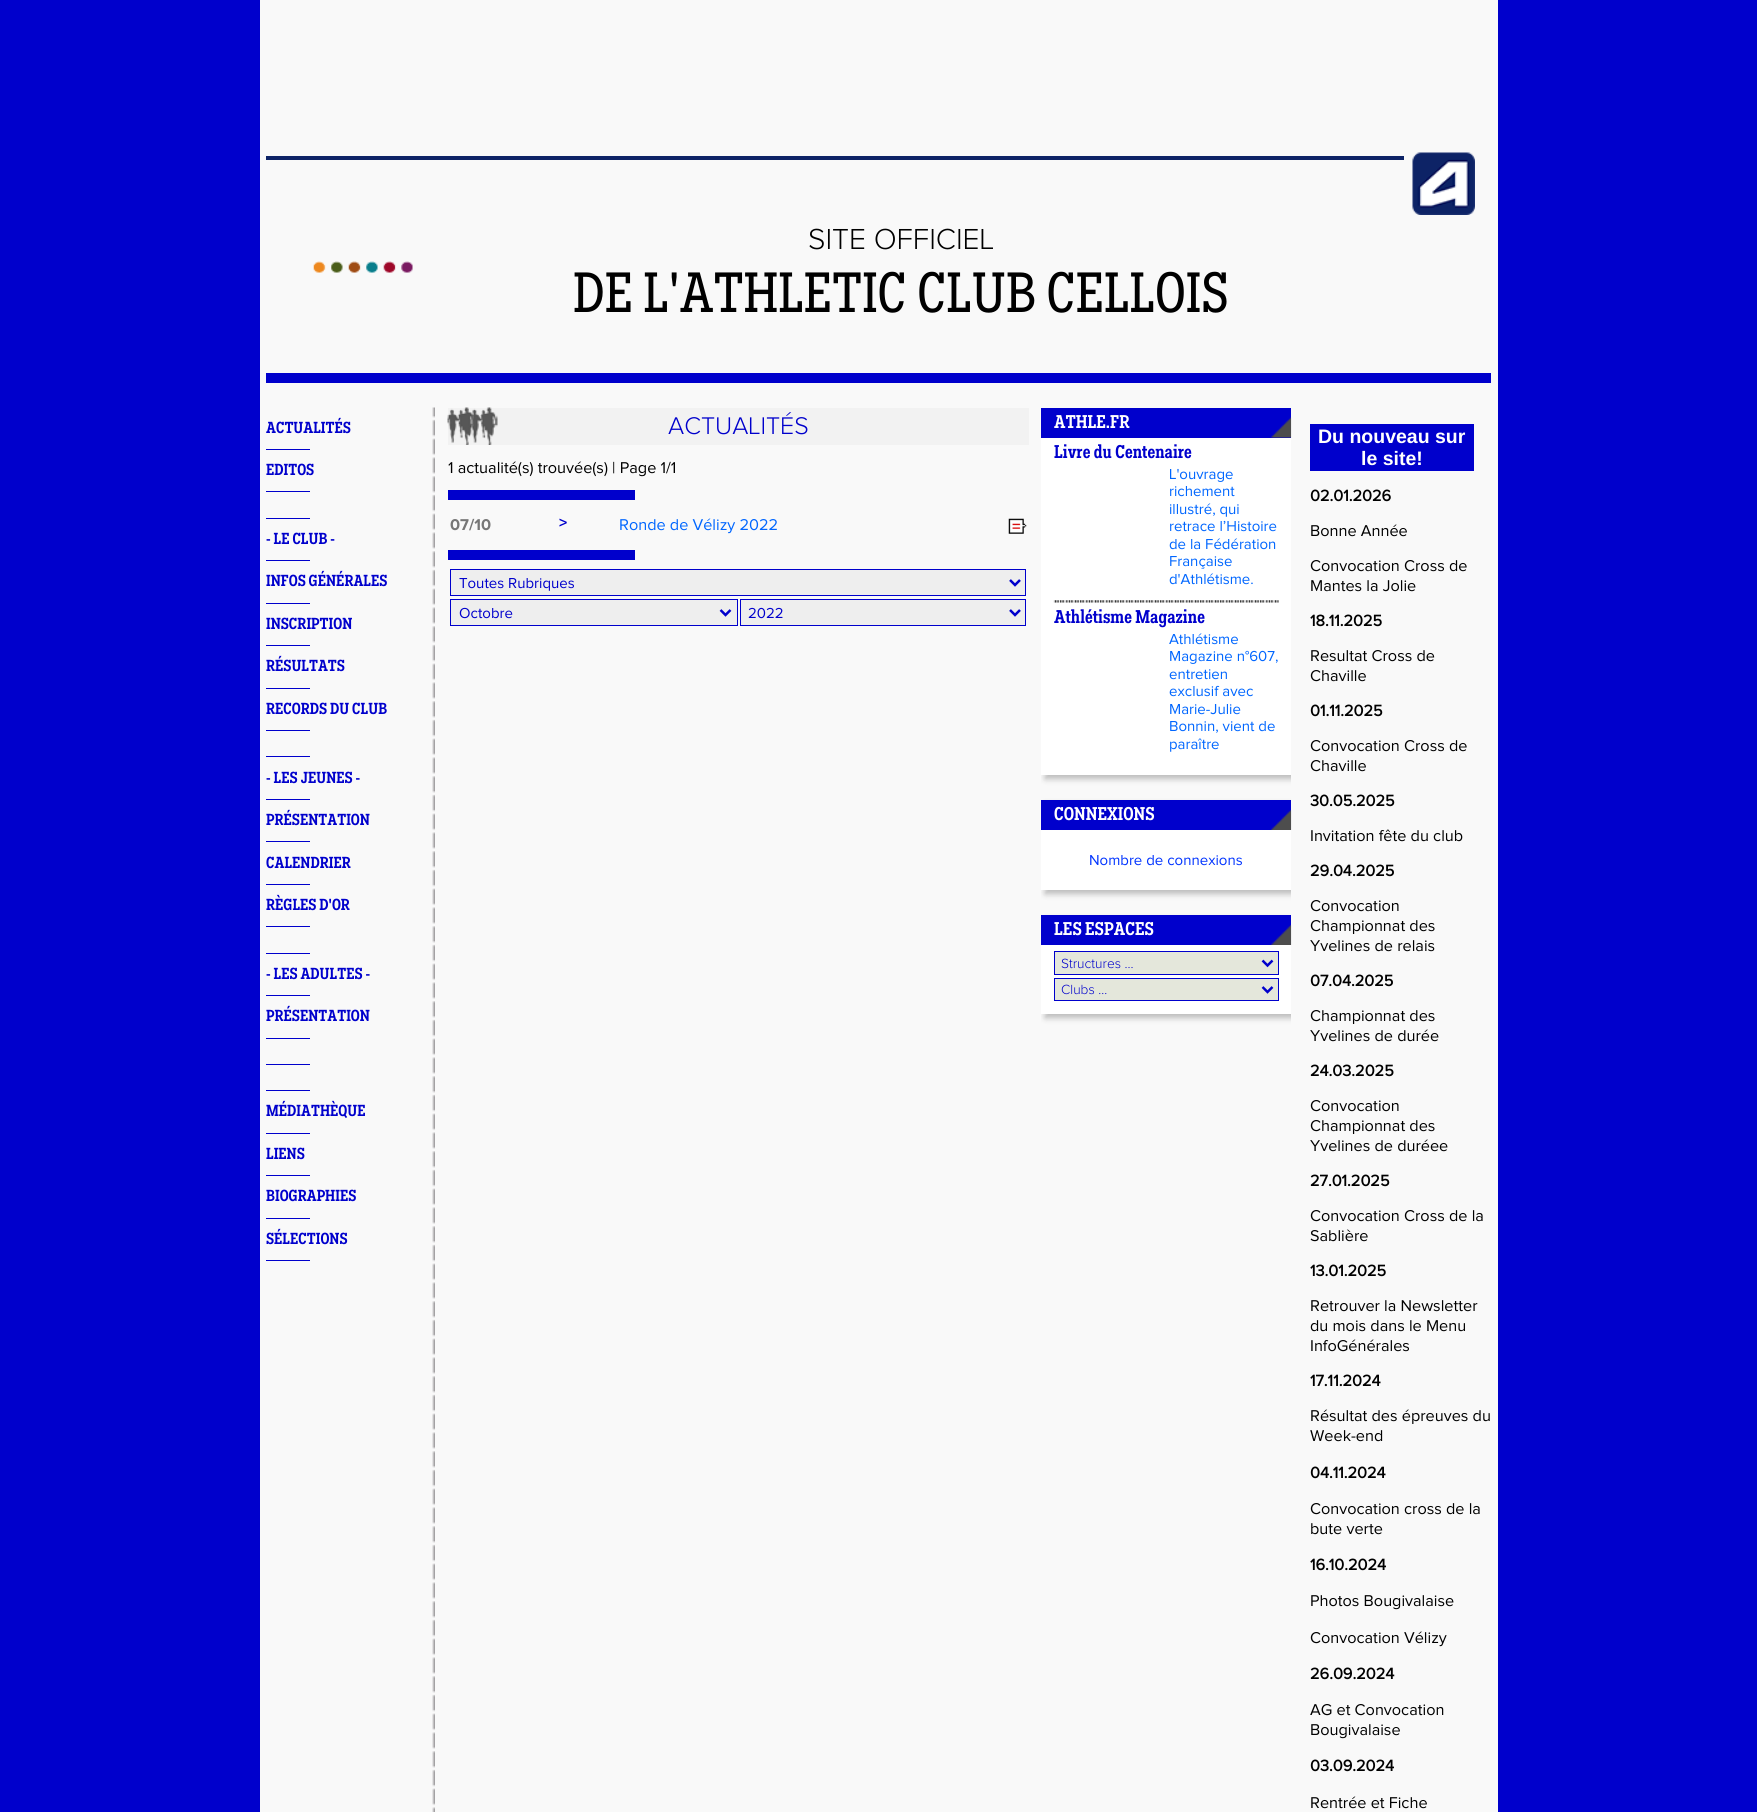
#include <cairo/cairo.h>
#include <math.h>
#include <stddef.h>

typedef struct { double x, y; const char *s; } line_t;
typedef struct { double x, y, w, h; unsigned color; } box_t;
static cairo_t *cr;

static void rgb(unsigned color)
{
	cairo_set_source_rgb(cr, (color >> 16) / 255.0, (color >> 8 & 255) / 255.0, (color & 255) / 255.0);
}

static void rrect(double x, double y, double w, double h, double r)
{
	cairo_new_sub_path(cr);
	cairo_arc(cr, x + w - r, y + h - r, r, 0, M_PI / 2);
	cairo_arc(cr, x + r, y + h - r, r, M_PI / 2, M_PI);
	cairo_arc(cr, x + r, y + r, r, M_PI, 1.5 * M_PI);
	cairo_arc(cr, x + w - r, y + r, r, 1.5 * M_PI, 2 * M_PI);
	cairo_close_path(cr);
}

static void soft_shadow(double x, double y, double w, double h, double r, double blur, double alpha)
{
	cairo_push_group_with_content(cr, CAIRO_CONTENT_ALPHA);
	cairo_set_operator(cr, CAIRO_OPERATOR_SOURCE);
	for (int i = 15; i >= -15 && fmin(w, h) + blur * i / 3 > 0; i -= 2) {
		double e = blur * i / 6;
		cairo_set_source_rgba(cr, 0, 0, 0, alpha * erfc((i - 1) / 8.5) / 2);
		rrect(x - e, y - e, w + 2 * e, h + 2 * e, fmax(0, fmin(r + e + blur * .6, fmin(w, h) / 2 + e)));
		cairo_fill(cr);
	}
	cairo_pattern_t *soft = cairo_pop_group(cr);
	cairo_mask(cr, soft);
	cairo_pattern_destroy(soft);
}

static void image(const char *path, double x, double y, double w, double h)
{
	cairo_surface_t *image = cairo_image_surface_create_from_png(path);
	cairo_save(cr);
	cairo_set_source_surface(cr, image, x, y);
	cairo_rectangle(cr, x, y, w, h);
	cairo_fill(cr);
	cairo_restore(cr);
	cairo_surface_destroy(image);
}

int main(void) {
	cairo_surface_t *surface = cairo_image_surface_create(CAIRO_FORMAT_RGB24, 1757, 1812);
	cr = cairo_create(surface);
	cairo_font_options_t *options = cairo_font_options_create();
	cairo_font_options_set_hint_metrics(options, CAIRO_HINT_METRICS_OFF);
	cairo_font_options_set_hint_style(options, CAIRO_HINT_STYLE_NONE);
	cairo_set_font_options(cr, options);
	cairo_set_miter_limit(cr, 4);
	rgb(0x0000cc);
	cairo_paint(cr);
	rgb(0xf9f9f9);
	cairo_rectangle(cr, 260, 0, 1238, 1812);
	cairo_fill(cr);
	rgb(0x0d2366);
	cairo_rectangle(cr, 266, 156, 1138, 4);
	cairo_fill(cr);
	image("img/1.png", 1412, 152, 63, 63);
	image("img/2.png", 313, 261, 100, 12);
	rgb(0x0000cc);
	cairo_rectangle(cr, 266, 373, 1225, 10);
	cairo_fill(cr);
	image("img/3.png", 432, 407, 3, 1405);
	{
		static const box_t items[] = {
			{266, 449, 44, 1, 0x0000cc},
			{266, 491, 44, 1, 0x0000cc},
			{266, 518, 44, 1, 0x0000cc},
			{266, 560, 44, 1, 0x0000cc},
			{266, 603, 44, 1, 0x0000cc},
			{266, 645, 44, 1, 0x0000cc},
			{266, 688, 44, 1, 0x0000cc},
			{266, 730, 44, 1, 0x0000cc},
			{266, 756, 44, 1, 0x0000cc},
			{266, 799, 44, 1, 0x0000cc},
			{266, 841, 44, 1, 0x0000cc},
			{266, 884, 44, 1, 0x0000cc},
			{266, 926, 44, 1, 0x0000cc},
			{266, 953, 44, 1, 0x0000cc},
			{266, 995, 44, 1, 0x0000cc},
			{266, 1038, 44, 1, 0x0000cc},
			{266, 1064, 44, 1, 0x0000cc},
			{266, 1090, 44, 1, 0x0000cc},
			{266, 1133, 44, 1, 0x0000cc},
			{266, 1175, 44, 1, 0x0000cc},
			{266, 1218, 44, 1, 0x0000cc},
			{266, 1260, 44, 1, 0x0000cc},
			{448, 408, 581, 37, 0xf2f2f2},
		};
		for (size_t i = 0; i < sizeof items / sizeof *items; i++) {
			rgb(items[i].color);
			cairo_rectangle(cr, items[i].x, items[i].y, items[i].w, items[i].h);
			cairo_fill(cr);
		}
	}
	image("img/4.png", 447, 407, 51, 38);
	rgb(0x0000cc);
	cairo_rectangle(cr, 448, 490, 187, 10);
	cairo_fill(cr);
	image("img/5.png", 1008, 518, 19, 16);
	cairo_rectangle(cr, 448, 550, 187, 10);
	cairo_fill(cr);
	rgb(0xeeeeee);
	cairo_rectangle(cr, 450.5, 569.5, 575, 26);
	cairo_fill_preserve(cr);
	rgb(0x0000cc);
	cairo_set_line_width(cr, 1);
	cairo_stroke(cr);
	cairo_new_path(cr);
	cairo_move_to(cr, 1010, 580);
	cairo_line_to(cr, 1015, 585);
	cairo_line_to(cr, 1020, 580);
	cairo_set_line_width(cr, 2.5);
	cairo_stroke(cr);
	rgb(0xeeeeee);
	cairo_rectangle(cr, 450.5, 599.5, 287, 26);
	cairo_fill_preserve(cr);
	rgb(0x0000cc);
	cairo_set_line_width(cr, 1);
	cairo_stroke(cr);
	cairo_new_path(cr);
	cairo_move_to(cr, 720.5, 610);
	cairo_line_to(cr, 725.5, 615);
	cairo_line_to(cr, 730.5, 610);
	cairo_set_line_width(cr, 2.5);
	cairo_stroke(cr);
	rgb(0xeeeeee);
	cairo_rectangle(cr, 740.5, 599.5, 285, 26);
	cairo_fill_preserve(cr);
	rgb(0x0000cc);
	cairo_set_line_width(cr, 1);
	cairo_stroke(cr);
	cairo_new_path(cr);
	cairo_move_to(cr, 1010, 610);
	cairo_line_to(cr, 1015, 615);
	cairo_line_to(cr, 1020, 610);
	cairo_set_line_width(cr, 2.5);
	cairo_stroke(cr);
	cairo_save(cr);
	cairo_rectangle(cr, 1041, 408, 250, 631);
	cairo_clip(cr);
	rgb(0x000000);
	soft_shadow(1045, 411, 250, 368, 0, 3, 0.25);
	cairo_restore(cr);
	rgb(0xffffff);
	cairo_rectangle(cr, 1041, 438, 250, 337);
	cairo_fill(cr);
	rgb(0x0000cc);
	cairo_rectangle(cr, 1041, 408, 250, 30);
	cairo_fill(cr);
	image("img/6.png", 1271, 417, 21, 21);
	image("img/7.png", 1053, 600, 226, 3);
	cairo_save(cr);
	cairo_rectangle(cr, 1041, 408, 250, 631);
	cairo_clip(cr);
	rgb(0x000000);
	soft_shadow(1045, 804, 250, 90, 0, 3, 0.25);
	cairo_restore(cr);
	rgb(0xffffff);
	cairo_rectangle(cr, 1041, 830, 250, 60);
	cairo_fill(cr);
	rgb(0x0000cc);
	cairo_rectangle(cr, 1041, 800, 250, 30);
	cairo_fill(cr);
	image("img/8.png", 1271, 810, 21, 20);
	cairo_save(cr);
	cairo_rectangle(cr, 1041, 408, 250, 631);
	cairo_clip(cr);
	rgb(0x000000);
	soft_shadow(1045, 919, 250, 99, 0, 3, 0.25);
	cairo_restore(cr);
	rgb(0xffffff);
	cairo_rectangle(cr, 1041, 945, 250, 69);
	cairo_fill(cr);
	rgb(0x0000cc);
	cairo_rectangle(cr, 1041, 915, 250, 30);
	cairo_fill(cr);
	image("img/8.png", 1271, 925, 21, 20);
	rgb(0xe4e7db);
	cairo_rectangle(cr, 1054.5, 951.5, 224, 23);
	cairo_fill_preserve(cr);
	rgb(0x0000cc);
	cairo_set_line_width(cr, 1);
	cairo_stroke(cr);
	cairo_new_path(cr);
	cairo_move_to(cr, 1262.5, 960.5);
	cairo_line_to(cr, 1267.5, 965.5);
	cairo_line_to(cr, 1272.5, 960.5);
	cairo_set_line_width(cr, 2.5);
	cairo_stroke(cr);
	rgb(0xe4e7db);
	cairo_rectangle(cr, 1054.5, 978.5, 224, 22);
	cairo_fill_preserve(cr);
	rgb(0x0000cc);
	cairo_set_line_width(cr, 1);
	cairo_stroke(cr);
	cairo_new_path(cr);
	cairo_move_to(cr, 1262.5, 987);
	cairo_line_to(cr, 1267.5, 992);
	cairo_line_to(cr, 1272.5, 987);
	cairo_set_line_width(cr, 2.5);
	cairo_stroke(cr);
	cairo_rectangle(cr, 1310, 424, 164, 47);
	cairo_fill(cr);
	cairo_select_font_face(cr, "Proxima Nova Light", CAIRO_FONT_SLANT_NORMAL, CAIRO_FONT_WEIGHT_NORMAL);
	cairo_set_font_size(cr, 30);
	rgb(0x000000);
	cairo_move_to(cr, 808, 249);
	cairo_show_text(cr, "SITE OFFICIEL");
	cairo_select_font_face(cr, "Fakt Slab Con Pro", CAIRO_FONT_SLANT_NORMAL, CAIRO_FONT_WEIGHT_NORMAL);
	cairo_set_font_size(cr, 57.5);
	cairo_move_to(cr, 573, 312);
	cairo_show_text(cr, "DE L'ATHLETIC CLUB CELLOIS");
	cairo_select_font_face(cr, "Fakt Slab Con Pro SemiBold", CAIRO_FONT_SLANT_NORMAL, CAIRO_FONT_WEIGHT_NORMAL);
	cairo_set_font_size(cr, 16.25);
	rgb(0x0000cc);
	{
		static const line_t items[] = {
			{266, 433, "ACTUALITÉS"},
			{266, 475, "EDITOS"},
			{266, 544, "- LE CLUB -"},
			{266, 586, "INFOS GÉNÉRALES"},
			{266, 629, "INSCRIPTION"},
			{266, 671, "RÉSULTATS"},
			{266, 714, "RECORDS DU CLUB"},
			{266, 783, "- LES JEUNES -"},
			{266, 825, "PRÉSENTATION"},
			{266, 868, "CALENDRIER"},
			{266, 910, "RÈGLES D'OR"},
			{266, 979, "- LES ADULTES -"},
			{266, 1021, "PRÉSENTATION"},
			{266, 1116, "MÉDIATHÈQUE"},
			{266, 1159, "LIENS"},
			{266, 1201, "BIOGRAPHIES"},
			{266, 1244, "SÉLECTIONS"},
		};
		for (size_t i = 0; i < sizeof items / sizeof *items; i++) {
			cairo_move_to(cr, items[i].x, items[i].y);
			cairo_show_text(cr, items[i].s);
		}
	}
	cairo_select_font_face(cr, "Proxima Nova Light", CAIRO_FONT_SLANT_NORMAL, CAIRO_FONT_WEIGHT_NORMAL);
	cairo_set_font_size(cr, 25);
	cairo_move_to(cr, 668, 434);
	cairo_show_text(cr, "ACTUALITÉS");
	cairo_select_font_face(cr, "Proxima Nova", CAIRO_FONT_SLANT_NORMAL, CAIRO_FONT_WEIGHT_NORMAL);
	cairo_set_font_size(cr, 16.25);
	rgb(0x000000);
	cairo_move_to(cr, 448, 473);
	cairo_show_text(cr, "1 actualité(s) trouvée(s) | Page 1/1");
	cairo_select_font_face(cr, "Proxima Nova", CAIRO_FONT_SLANT_NORMAL, CAIRO_FONT_WEIGHT_BOLD);
	rgb(0x777777);
	cairo_move_to(cr, 450, 530);
	cairo_show_text(cr, "07/10");
	rgb(0x0000cc);
	cairo_move_to(cr, 559, 528);
	cairo_show_text(cr, ">");
	cairo_select_font_face(cr, "Proxima Nova", CAIRO_FONT_SLANT_NORMAL, CAIRO_FONT_WEIGHT_NORMAL);
	rgb(0x0066ff);
	cairo_move_to(cr, 619, 530);
	cairo_show_text(cr, "Ronde de Vélizy 2022");
	cairo_set_font_size(cr, 15);
	rgb(0x0000cc);
	{
		static const line_t items[] = {
			{459, 588, "Toutes Rubriques"},
			{459, 618, "Octobre"},
			{748, 618, "2022"},
		};
		for (size_t i = 0; i < sizeof items / sizeof *items; i++) {
			cairo_move_to(cr, items[i].x, items[i].y);
			cairo_show_text(cr, items[i].s);
		}
	}
	cairo_select_font_face(cr, "Fakt Slab Con Pro SemiBold", CAIRO_FONT_SLANT_NORMAL, CAIRO_FONT_WEIGHT_NORMAL);
	cairo_set_font_size(cr, 18.75);
	rgb(0xffffff);
	cairo_move_to(cr, 1054, 428);
	cairo_show_text(cr, "ATHLE.FR");
	rgb(0x0000cc);
	cairo_move_to(cr, 1054, 458);
	cairo_show_text(cr, "Livre du Centenaire");
	cairo_select_font_face(cr, "Proxima Nova", CAIRO_FONT_SLANT_NORMAL, CAIRO_FONT_WEIGHT_NORMAL);
	cairo_set_font_size(cr, 15);
	rgb(0x0066ff);
	{
		static const line_t items[] = {
			{1169, 479, "L'ouvrage"},
			{1169, 496, "richement"},
			{1169, 514, "illustré, qui"},
			{1169, 531, "retrace l’Histoire"},
			{1169, 549, "de la Fédération"},
			{1169, 566, "Française"},
			{1169, 584, "d'Athlétisme."},
		};
		for (size_t i = 0; i < sizeof items / sizeof *items; i++) {
			cairo_move_to(cr, items[i].x, items[i].y);
			cairo_show_text(cr, items[i].s);
		}
	}
	cairo_select_font_face(cr, "Fakt Slab Con Pro SemiBold", CAIRO_FONT_SLANT_NORMAL, CAIRO_FONT_WEIGHT_NORMAL);
	cairo_set_font_size(cr, 18.75);
	rgb(0x0000cc);
	cairo_move_to(cr, 1054, 623);
	cairo_show_text(cr, "Athlétisme Magazine");
	cairo_select_font_face(cr, "Proxima Nova", CAIRO_FONT_SLANT_NORMAL, CAIRO_FONT_WEIGHT_NORMAL);
	cairo_set_font_size(cr, 15);
	rgb(0x0066ff);
	{
		static const line_t items[] = {
			{1169, 644, "Athlétisme"},
			{1169, 661, "Magazine n°607,"},
			{1169, 679, "entretien"},
			{1169, 696, "exclusif avec"},
			{1169, 714, "Marie-Julie"},
			{1169, 731, "Bonnin, vient de"},
			{1169, 749, "paraître"},
		};
		for (size_t i = 0; i < sizeof items / sizeof *items; i++) {
			cairo_move_to(cr, items[i].x, items[i].y);
			cairo_show_text(cr, items[i].s);
		}
	}
	cairo_select_font_face(cr, "Fakt Slab Con Pro SemiBold", CAIRO_FONT_SLANT_NORMAL, CAIRO_FONT_WEIGHT_NORMAL);
	cairo_set_font_size(cr, 18.75);
	rgb(0xffffff);
	cairo_move_to(cr, 1054, 820);
	cairo_show_text(cr, "CONNEXIONS");
	cairo_select_font_face(cr, "Proxima Nova", CAIRO_FONT_SLANT_NORMAL, CAIRO_FONT_WEIGHT_NORMAL);
	cairo_set_font_size(cr, 15);
	rgb(0x0033ff);
	cairo_move_to(cr, 1089, 865);
	cairo_show_text(cr, "Nombre de connexions");
	cairo_select_font_face(cr, "Fakt Slab Con Pro SemiBold", CAIRO_FONT_SLANT_NORMAL, CAIRO_FONT_WEIGHT_NORMAL);
	cairo_set_font_size(cr, 18.75);
	rgb(0xffffff);
	cairo_move_to(cr, 1054, 935);
	cairo_show_text(cr, "LES ESPACES");
	cairo_select_font_face(cr, "Proxima Nova Light", CAIRO_FONT_SLANT_NORMAL, CAIRO_FONT_WEIGHT_NORMAL);
	cairo_set_font_size(cr, 13.75);
	rgb(0x0000cc);
	cairo_move_to(cr, 1061, 968);
	cairo_show_text(cr, "Structures ...");
	cairo_move_to(cr, 1061, 994);
	cairo_show_text(cr, "Clubs ...");
	cairo_select_font_face(cr, "Liberation Sans", CAIRO_FONT_SLANT_NORMAL, CAIRO_FONT_WEIGHT_BOLD);
	cairo_set_font_size(cr, 19.5);
	rgb(0xffffff);
	cairo_move_to(cr, 1318, 443);
	cairo_show_text(cr, "Du nouveau sur");
	cairo_move_to(cr, 1361, 465);
	cairo_show_text(cr, "le site!");
	cairo_select_font_face(cr, "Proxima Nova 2", CAIRO_FONT_SLANT_NORMAL, CAIRO_FONT_WEIGHT_BOLD);
	cairo_set_font_size(cr, 16.25);
	rgb(0x000000);
	cairo_move_to(cr, 1310, 501);
	cairo_show_text(cr, "02.01.2026");
	cairo_select_font_face(cr, "Proxima Nova", CAIRO_FONT_SLANT_NORMAL, CAIRO_FONT_WEIGHT_NORMAL);
	{
		static const line_t items[] = {
			{1310, 536, "Bonne Année"},
			{1310, 571, "Convocation Cross de"},
			{1310, 591, "Mantes la Jolie"},
		};
		for (size_t i = 0; i < sizeof items / sizeof *items; i++) {
			cairo_move_to(cr, items[i].x, items[i].y);
			cairo_show_text(cr, items[i].s);
		}
	}
	cairo_select_font_face(cr, "Proxima Nova 2", CAIRO_FONT_SLANT_NORMAL, CAIRO_FONT_WEIGHT_BOLD);
	cairo_move_to(cr, 1310, 626);
	cairo_show_text(cr, "18.11.2025");
	cairo_select_font_face(cr, "Proxima Nova", CAIRO_FONT_SLANT_NORMAL, CAIRO_FONT_WEIGHT_NORMAL);
	cairo_move_to(cr, 1310, 661);
	cairo_show_text(cr, "Resultat Cross de");
	cairo_move_to(cr, 1310, 681);
	cairo_show_text(cr, "Chaville");
	cairo_select_font_face(cr, "Proxima Nova 2", CAIRO_FONT_SLANT_NORMAL, CAIRO_FONT_WEIGHT_BOLD);
	cairo_move_to(cr, 1310, 716);
	cairo_show_text(cr, "01.11.2025");
	cairo_select_font_face(cr, "Proxima Nova", CAIRO_FONT_SLANT_NORMAL, CAIRO_FONT_WEIGHT_NORMAL);
	cairo_move_to(cr, 1310, 751);
	cairo_show_text(cr, "Convocation Cross de");
	cairo_move_to(cr, 1310, 771);
	cairo_show_text(cr, "Chaville");
	cairo_select_font_face(cr, "Proxima Nova 2", CAIRO_FONT_SLANT_NORMAL, CAIRO_FONT_WEIGHT_BOLD);
	cairo_move_to(cr, 1310, 806);
	cairo_show_text(cr, "30.05.2025");
	cairo_select_font_face(cr, "Proxima Nova", CAIRO_FONT_SLANT_NORMAL, CAIRO_FONT_WEIGHT_NORMAL);
	cairo_move_to(cr, 1310, 841);
	cairo_show_text(cr, "Invitation fête du club");
	cairo_select_font_face(cr, "Proxima Nova 2", CAIRO_FONT_SLANT_NORMAL, CAIRO_FONT_WEIGHT_BOLD);
	cairo_move_to(cr, 1310, 876);
	cairo_show_text(cr, "29.04.2025");
	cairo_select_font_face(cr, "Proxima Nova", CAIRO_FONT_SLANT_NORMAL, CAIRO_FONT_WEIGHT_NORMAL);
	{
		static const line_t items[] = {
			{1310, 911, "Convocation"},
			{1310, 931, "Championnat des"},
			{1310, 951, "Yvelines de relais"},
		};
		for (size_t i = 0; i < sizeof items / sizeof *items; i++) {
			cairo_move_to(cr, items[i].x, items[i].y);
			cairo_show_text(cr, items[i].s);
		}
	}
	cairo_select_font_face(cr, "Proxima Nova 2", CAIRO_FONT_SLANT_NORMAL, CAIRO_FONT_WEIGHT_BOLD);
	cairo_move_to(cr, 1310, 986);
	cairo_show_text(cr, "07.04.2025");
	cairo_select_font_face(cr, "Proxima Nova", CAIRO_FONT_SLANT_NORMAL, CAIRO_FONT_WEIGHT_NORMAL);
	cairo_move_to(cr, 1310, 1021);
	cairo_show_text(cr, "Championnat des");
	cairo_move_to(cr, 1310, 1041);
	cairo_show_text(cr, "Yvelines de durée");
	cairo_select_font_face(cr, "Proxima Nova 2", CAIRO_FONT_SLANT_NORMAL, CAIRO_FONT_WEIGHT_BOLD);
	cairo_move_to(cr, 1310, 1076);
	cairo_show_text(cr, "24.03.2025");
	cairo_select_font_face(cr, "Proxima Nova", CAIRO_FONT_SLANT_NORMAL, CAIRO_FONT_WEIGHT_NORMAL);
	{
		static const line_t items[] = {
			{1310, 1111, "Convocation"},
			{1310, 1131, "Championnat des"},
			{1310, 1151, "Yvelines de duréee"},
		};
		for (size_t i = 0; i < sizeof items / sizeof *items; i++) {
			cairo_move_to(cr, items[i].x, items[i].y);
			cairo_show_text(cr, items[i].s);
		}
	}
	cairo_select_font_face(cr, "Proxima Nova 2", CAIRO_FONT_SLANT_NORMAL, CAIRO_FONT_WEIGHT_BOLD);
	cairo_move_to(cr, 1310, 1186);
	cairo_show_text(cr, "27.01.2025");
	cairo_select_font_face(cr, "Proxima Nova", CAIRO_FONT_SLANT_NORMAL, CAIRO_FONT_WEIGHT_NORMAL);
	cairo_move_to(cr, 1310, 1221);
	cairo_show_text(cr, "Convocation Cross de la");
	cairo_move_to(cr, 1310, 1241);
	cairo_show_text(cr, "Sablière");
	cairo_select_font_face(cr, "Proxima Nova 2", CAIRO_FONT_SLANT_NORMAL, CAIRO_FONT_WEIGHT_BOLD);
	cairo_move_to(cr, 1310, 1276);
	cairo_show_text(cr, "13.01.2025");
	cairo_select_font_face(cr, "Proxima Nova", CAIRO_FONT_SLANT_NORMAL, CAIRO_FONT_WEIGHT_NORMAL);
	{
		static const line_t items[] = {
			{1310, 1311, "Retrouver la Newsletter"},
			{1310, 1331, "du mois dans le Menu"},
			{1310, 1351, "InfoGénérales"},
		};
		for (size_t i = 0; i < sizeof items / sizeof *items; i++) {
			cairo_move_to(cr, items[i].x, items[i].y);
			cairo_show_text(cr, items[i].s);
		}
	}
	cairo_select_font_face(cr, "Proxima Nova 2", CAIRO_FONT_SLANT_NORMAL, CAIRO_FONT_WEIGHT_BOLD);
	cairo_move_to(cr, 1310, 1386);
	cairo_show_text(cr, "17.11.2024");
	cairo_select_font_face(cr, "Proxima Nova", CAIRO_FONT_SLANT_NORMAL, CAIRO_FONT_WEIGHT_NORMAL);
	cairo_move_to(cr, 1310, 1421);
	cairo_show_text(cr, "Résultat des épreuves du");
	cairo_move_to(cr, 1310, 1441);
	cairo_show_text(cr, "Week-end");
	cairo_select_font_face(cr, "Proxima Nova 2", CAIRO_FONT_SLANT_NORMAL, CAIRO_FONT_WEIGHT_BOLD);
	cairo_move_to(cr, 1310, 1478);
	cairo_show_text(cr, "04.11.2024");
	cairo_select_font_face(cr, "Proxima Nova", CAIRO_FONT_SLANT_NORMAL, CAIRO_FONT_WEIGHT_NORMAL);
	cairo_move_to(cr, 1310, 1514);
	cairo_show_text(cr, "Convocation cross de la");
	cairo_move_to(cr, 1310, 1534);
	cairo_show_text(cr, "bute verte");
	cairo_select_font_face(cr, "Proxima Nova 2", CAIRO_FONT_SLANT_NORMAL, CAIRO_FONT_WEIGHT_BOLD);
	cairo_move_to(cr, 1310, 1570);
	cairo_show_text(cr, "16.10.2024");
	cairo_select_font_face(cr, "Proxima Nova", CAIRO_FONT_SLANT_NORMAL, CAIRO_FONT_WEIGHT_NORMAL);
	cairo_move_to(cr, 1310, 1606);
	cairo_show_text(cr, "Photos Bougivalaise");
	cairo_move_to(cr, 1310, 1643);
	cairo_show_text(cr, "Convocation Vélizy");
	cairo_select_font_face(cr, "Proxima Nova 2", CAIRO_FONT_SLANT_NORMAL, CAIRO_FONT_WEIGHT_BOLD);
	cairo_move_to(cr, 1310, 1679);
	cairo_show_text(cr, "26.09.2024");
	cairo_select_font_face(cr, "Proxima Nova", CAIRO_FONT_SLANT_NORMAL, CAIRO_FONT_WEIGHT_NORMAL);
	cairo_move_to(cr, 1310, 1715);
	cairo_show_text(cr, "AG et Convocation");
	cairo_move_to(cr, 1310, 1735);
	cairo_show_text(cr, "Bougivalaise");
	cairo_select_font_face(cr, "Proxima Nova 2", CAIRO_FONT_SLANT_NORMAL, CAIRO_FONT_WEIGHT_BOLD);
	cairo_move_to(cr, 1310, 1771);
	cairo_show_text(cr, "03.09.2024");
	cairo_select_font_face(cr, "Proxima Nova", CAIRO_FONT_SLANT_NORMAL, CAIRO_FONT_WEIGHT_NORMAL);
	cairo_move_to(cr, 1310, 1808);
	cairo_show_text(cr, "Rentrée et Fiche");
	cairo_surface_write_to_png(surface, "page.png");
	cairo_font_options_destroy(options);
	cairo_destroy(cr);
	cairo_surface_destroy(surface);
	return 0;
}
